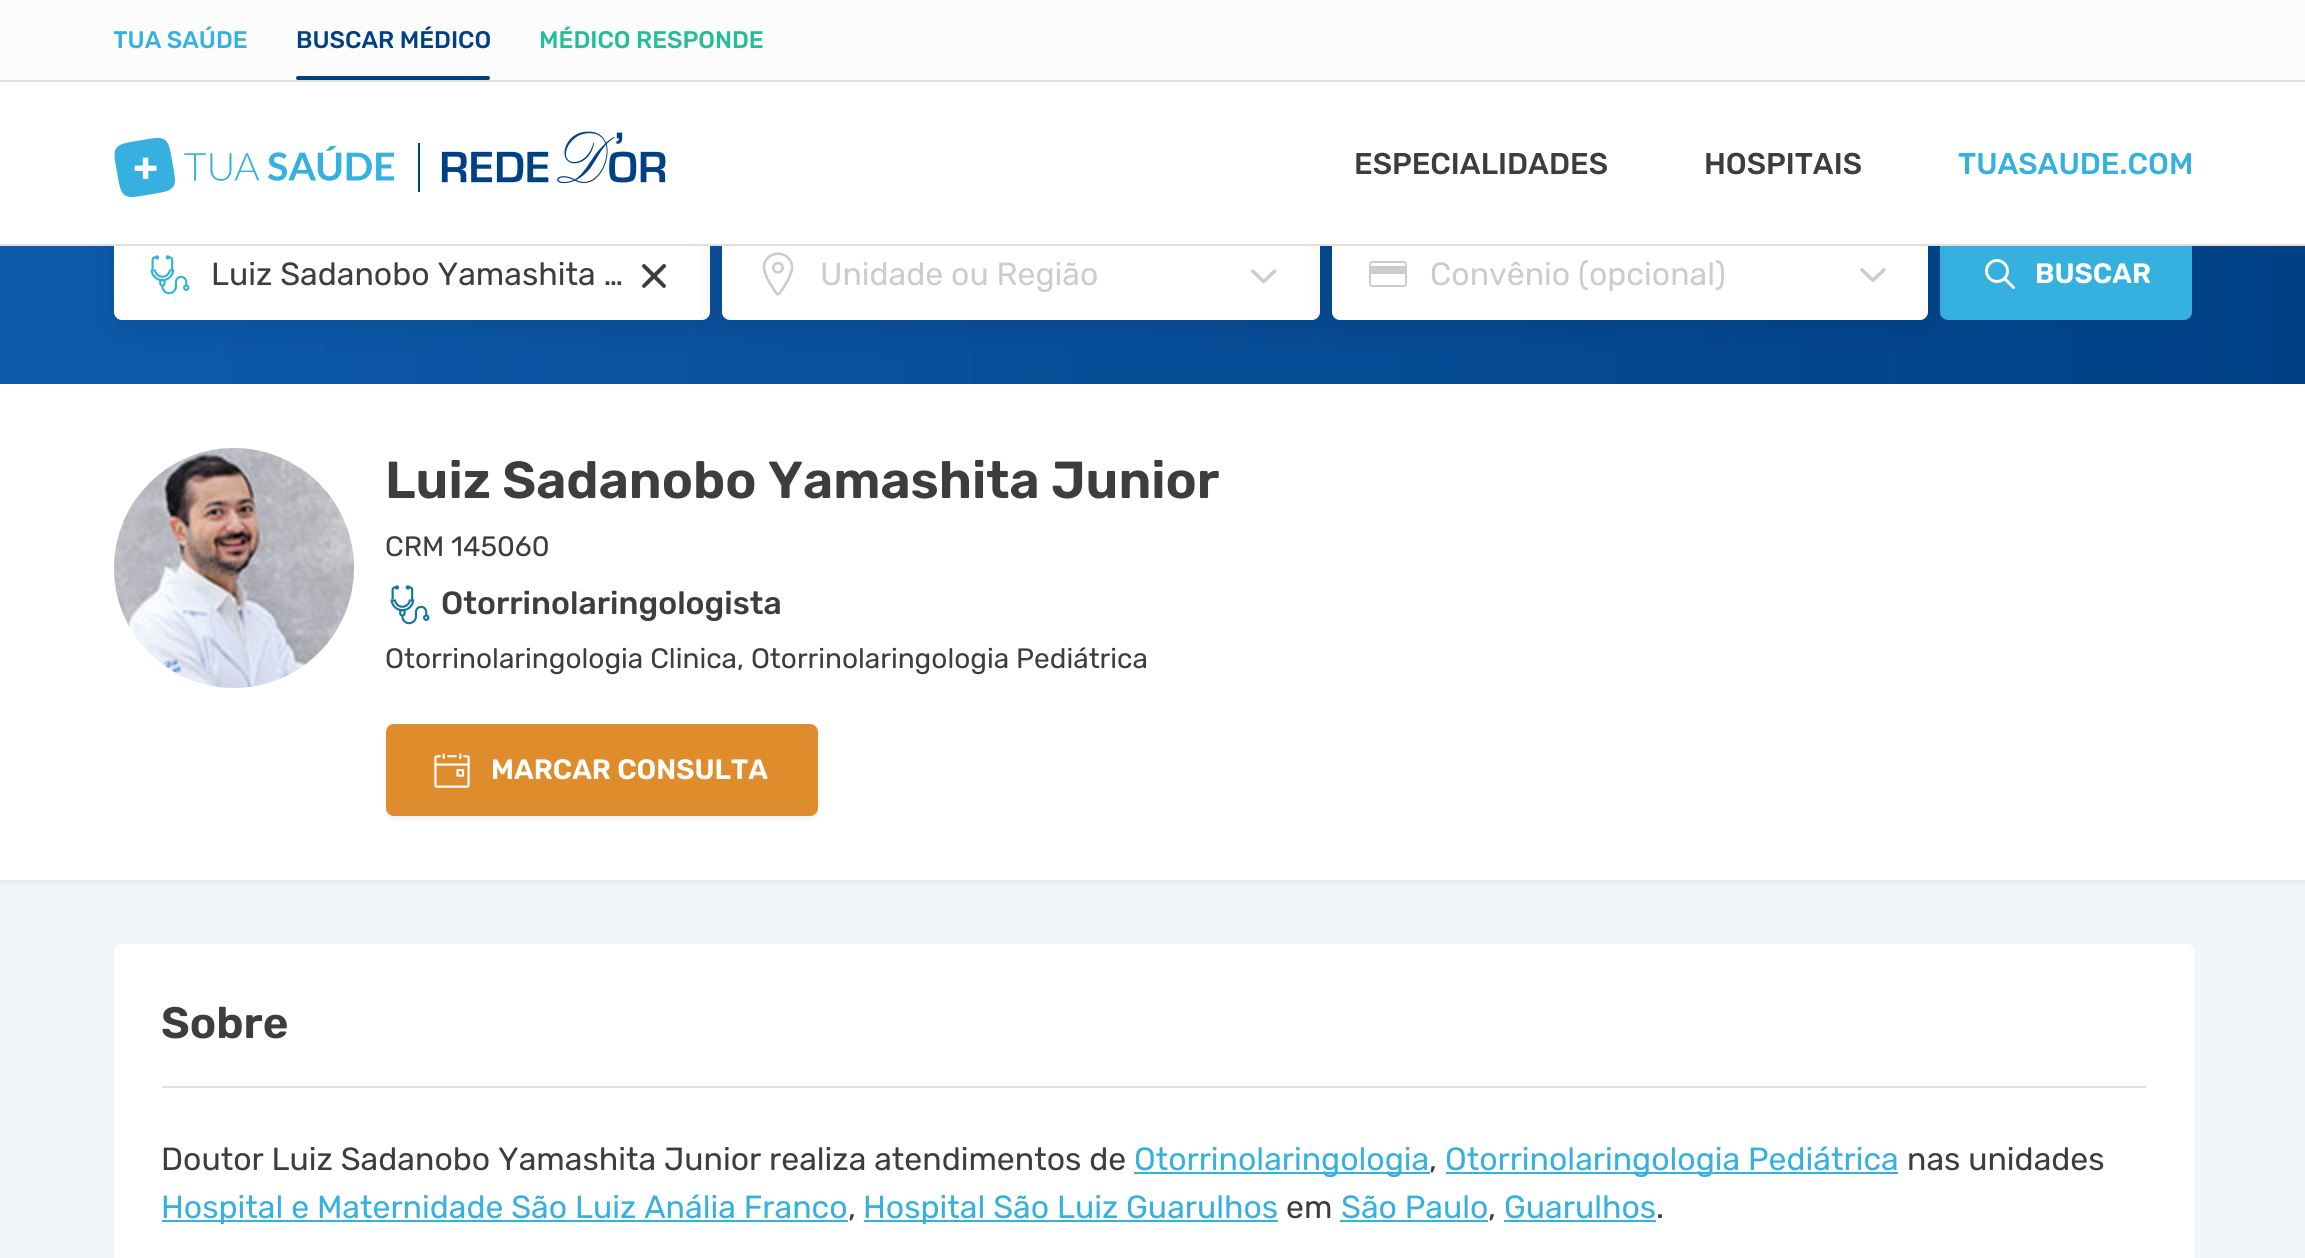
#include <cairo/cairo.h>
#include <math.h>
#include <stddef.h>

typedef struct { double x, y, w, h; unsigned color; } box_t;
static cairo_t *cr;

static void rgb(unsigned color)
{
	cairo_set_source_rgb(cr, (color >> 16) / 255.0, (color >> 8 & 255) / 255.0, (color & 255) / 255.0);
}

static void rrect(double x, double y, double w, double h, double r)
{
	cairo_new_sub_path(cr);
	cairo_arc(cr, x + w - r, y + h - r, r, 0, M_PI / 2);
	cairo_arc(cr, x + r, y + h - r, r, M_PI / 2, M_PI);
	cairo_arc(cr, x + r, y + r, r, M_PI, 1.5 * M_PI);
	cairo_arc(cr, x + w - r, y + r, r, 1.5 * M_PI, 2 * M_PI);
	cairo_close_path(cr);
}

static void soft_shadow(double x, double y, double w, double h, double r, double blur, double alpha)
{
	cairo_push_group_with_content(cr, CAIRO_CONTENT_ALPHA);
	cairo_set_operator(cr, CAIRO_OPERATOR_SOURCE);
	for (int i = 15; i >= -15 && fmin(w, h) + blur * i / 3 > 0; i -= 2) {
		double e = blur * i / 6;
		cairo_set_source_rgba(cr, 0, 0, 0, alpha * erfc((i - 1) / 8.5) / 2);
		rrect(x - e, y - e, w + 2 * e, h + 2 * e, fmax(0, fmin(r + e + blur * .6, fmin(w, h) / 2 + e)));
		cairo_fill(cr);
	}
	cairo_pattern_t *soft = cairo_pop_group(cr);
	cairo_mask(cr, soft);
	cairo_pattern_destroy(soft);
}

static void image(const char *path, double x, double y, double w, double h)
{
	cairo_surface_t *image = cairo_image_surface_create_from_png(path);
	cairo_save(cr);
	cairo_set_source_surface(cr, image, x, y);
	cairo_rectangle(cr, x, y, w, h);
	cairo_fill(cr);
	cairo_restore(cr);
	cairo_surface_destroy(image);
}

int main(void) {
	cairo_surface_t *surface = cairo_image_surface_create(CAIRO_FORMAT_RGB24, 2305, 1258);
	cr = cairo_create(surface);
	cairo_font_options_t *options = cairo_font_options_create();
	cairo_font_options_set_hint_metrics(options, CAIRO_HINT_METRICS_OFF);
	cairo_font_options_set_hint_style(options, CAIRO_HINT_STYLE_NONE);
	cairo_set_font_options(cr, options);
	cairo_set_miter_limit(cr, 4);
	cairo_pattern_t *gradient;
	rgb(0xf2f6f9);
	cairo_paint(cr);
	gradient = cairo_pattern_create_linear(0, 236, 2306, 236);
	cairo_pattern_add_color_stop_rgba(gradient, 0, 0.055, 0.353, 0.671, 1);
	cairo_pattern_add_color_stop_rgba(gradient, 1, 0, 0.255, 0.525, 1);
	cairo_set_source(cr, gradient);
	cairo_pattern_destroy(gradient);
	cairo_rectangle(cr, 0, 246, 2305, 138);
	cairo_fill(cr);
	rgb(0x000000);
	soft_shadow(114, 236, 596, 92, 8, 15, 0.1);
	rgb(0xffffff);
	rrect(114, 228, 596, 92, 8);
	cairo_fill(cr);
	rgb(0x000000);
	soft_shadow(722, 236, 598, 92, 8, 15, 0.1);
	rgb(0xffffff);
	rrect(722, 228, 598, 92, 8);
	cairo_fill(cr);
	rgb(0x000000);
	soft_shadow(1940, 232, 252, 92, 8, 2, 0.05);
	rgb(0x36b1df);
	rrect(1940, 228, 252, 92, 8);
	cairo_fill(cr);
	rgb(0x000000);
	soft_shadow(1332, 236, 596, 92, 8, 15, 0.1);
	rgb(0xffffff);
	rrect(1332, 228, 596, 92, 8);
	cairo_fill(cr);
	{
		static const box_t items[] = {
			{0, 82, 2305, 162, 0xffffff},
			{0, 0, 2305, 80, 0xfcfcfc},
			{0, 80, 2305, 2, 0xe0e0e0},
		};
		for (size_t i = 0; i < sizeof items / sizeof *items; i++) {
			rgb(items[i].color);
			cairo_rectangle(cr, items[i].x, items[i].y, items[i].w, items[i].h);
			cairo_fill(cr);
		}
	}
	rgb(0x004186);
	rrect(296, 76, 194, 4, 2);
	cairo_fill(cr);
	rgb(0xe0e0e0);
	cairo_rectangle(cr, 0, 244, 2305, 2);
	cairo_fill(cr);
	image("img/1.png", 114, 131, 552, 66);
	image("img/2.png", 150, 255, 40, 40);
	image("img/3.png", 642, 264, 24, 24);
	image("img/4.png", 762, 252, 32, 44);
	image("img/5.png", 1250, 269, 27, 15);
	image("img/6.png", 1369, 261, 38, 26);
	image("img/7.png", 1860, 268, 26, 14);
	image("img/8.png", 1985, 259, 30, 30);
	rgb(0x000000);
	soft_shadow(0, 388, 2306, 496, 0, 2, 0.05);
	rgb(0xffffff);
	cairo_rectangle(cr, 0, 384, 2305, 496);
	cairo_fill(cr);
	rgb(0xedfaff);
	cairo_arc(cr, 234, 568, 120, 0, 2 * M_PI);
	cairo_fill(cr);
	image("img/9.png", 114, 448, 240, 240);
	image("img/10.png", 390, 585, 40, 40);
	rgb(0x000000);
	soft_shadow(386, 728, 432, 92, 8, 2, 0.05);
	rgb(0xdf8d2c);
	rrect(386, 724, 432, 92, 8);
	cairo_fill(cr);
	image("img/11.png", 434, 753, 36, 35);
	rgb(0xffffff);
	rrect(114, 944, 2080, 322, 8);
	cairo_fill(cr);
	{
		static const box_t items[] = {
			{162, 1086, 1984, 2, 0xe0e0e0},
			{1134, 1172, 296, 2, 0x36b1df},
			{1446, 1172, 452, 2, 0x36b1df},
			{162, 1220, 686, 2, 0x36b1df},
			{864, 1220, 414, 2, 0x36b1df},
			{1340, 1220, 148, 2, 0x36b1df},
			{1504, 1220, 152, 2, 0x36b1df},
		};
		for (size_t i = 0; i < sizeof items / sizeof *items; i++) {
			rgb(items[i].color);
			cairo_rectangle(cr, items[i].x, items[i].y, items[i].w, items[i].h);
			cairo_fill(cr);
		}
	}
	cairo_save(cr);
	cairo_rectangle(cr, 114, 0, 2080, 80);
	cairo_clip(cr);
	cairo_select_font_face(cr, "Rubik Medium", CAIRO_FONT_SLANT_NORMAL, CAIRO_FONT_WEIGHT_NORMAL);
	cairo_set_font_size(cr, 24);
	cairo_move_to(cr, 113, 48);
	cairo_show_text(cr, "TUA SAÚDE");
	cairo_restore(cr);
	cairo_select_font_face(cr, "Rubik Medium", CAIRO_FONT_SLANT_NORMAL, CAIRO_FONT_WEIGHT_NORMAL);
	cairo_set_font_size(cr, 24);
	rgb(0x004186);
	cairo_move_to(cr, 296, 48);
	cairo_show_text(cr, "BUSCAR MÉDICO");
	rgb(0x24bd97);
	cairo_move_to(cr, 539, 48);
	cairo_show_text(cr, "MÉDICO RESPONDE");
	cairo_set_font_size(cr, 30);
	rgb(0x3d3d3d);
	cairo_move_to(cr, 1354, 174);
	cairo_show_text(cr, "ESPECIALIDADES");
	cairo_move_to(cr, 1704, 174);
	cairo_show_text(cr, "HOSPITAIS");
	rgb(0x36b1df);
	cairo_move_to(cr, 1958, 174);
	cairo_show_text(cr, "TUASAUDE.COM");
	cairo_select_font_face(cr, "Rubik", CAIRO_FONT_SLANT_NORMAL, CAIRO_FONT_WEIGHT_NORMAL);
	cairo_set_font_size(cr, 32);
	rgb(0x3d3d3d);
	cairo_move_to(cr, 211, 285);
	cairo_show_text(cr, "Luiz Sadanobo Yamashita …");
	rgb(0xcccccc);
	cairo_move_to(cr, 820, 285);
	cairo_show_text(cr, "Unidade ou Região");
	cairo_move_to(cr, 1430, 285);
	cairo_show_text(cr, "Convênio (opcional)");
	cairo_select_font_face(cr, "Rubik SemiBold", CAIRO_FONT_SLANT_NORMAL, CAIRO_FONT_WEIGHT_NORMAL);
	cairo_set_font_size(cr, 28);
	rgb(0xffffff);
	cairo_move_to(cr, 2035, 283);
	cairo_show_text(cr, "BUSCAR");
	cairo_set_font_size(cr, 52);
	rgb(0x3d3d3d);
	cairo_move_to(cr, 385, 498);
	cairo_show_text(cr, "Luiz Sadanobo Yamashita Junior");
	cairo_select_font_face(cr, "Rubik", CAIRO_FONT_SLANT_NORMAL, CAIRO_FONT_WEIGHT_NORMAL);
	cairo_set_font_size(cr, 28);
	cairo_move_to(cr, 385, 556);
	cairo_show_text(cr, "CRM 145060");
	cairo_select_font_face(cr, "Rubik Medium", CAIRO_FONT_SLANT_NORMAL, CAIRO_FONT_WEIGHT_NORMAL);
	cairo_set_font_size(cr, 32);
	cairo_move_to(cr, 441, 614);
	cairo_show_text(cr, "Otorrinolaringologista");
	cairo_select_font_face(cr, "Rubik", CAIRO_FONT_SLANT_NORMAL, CAIRO_FONT_WEIGHT_NORMAL);
	cairo_set_font_size(cr, 28);
	cairo_move_to(cr, 385, 668);
	cairo_show_text(cr, "Otorrinolaringologia Clinica, Otorrinolaringologia Pediátrica");
	cairo_select_font_face(cr, "Rubik SemiBold", CAIRO_FONT_SLANT_NORMAL, CAIRO_FONT_WEIGHT_NORMAL);
	rgb(0xffffff);
	cairo_move_to(cr, 491, 779);
	cairo_show_text(cr, "MARCAR CONSULTA");
	cairo_set_font_size(cr, 44);
	rgb(0x3d3d3d);
	cairo_move_to(cr, 161, 1038);
	cairo_show_text(cr, "Sobre");
	cairo_select_font_face(cr, "Rubik", CAIRO_FONT_SLANT_NORMAL, CAIRO_FONT_WEIGHT_NORMAL);
	cairo_set_font_size(cr, 32);
	cairo_move_to(cr, 161, 1170);
	cairo_show_text(cr, "Doutor Luiz Sadanobo Yamashita Junior realiza atendimentos de");
	rgb(0x36b1df);
	cairo_move_to(cr, 1134, 1170);
	cairo_show_text(cr, "Otorrinolaringologia");
	rgb(0x3d3d3d);
	cairo_move_to(cr, 1429, 1170);
	cairo_show_text(cr, ",");
	rgb(0x36b1df);
	cairo_move_to(cr, 1445, 1170);
	cairo_show_text(cr, "Otorrinolaringologia Pediátrica");
	rgb(0x3d3d3d);
	cairo_move_to(cr, 1907, 1170);
	cairo_show_text(cr, "nas unidades");
	rgb(0x36b1df);
	cairo_move_to(cr, 161, 1218);
	cairo_show_text(cr, "Hospital e Maternidade São Luiz Anália Franco");
	rgb(0x3d3d3d);
	cairo_move_to(cr, 848, 1218);
	cairo_show_text(cr, ",");
	rgb(0x36b1df);
	cairo_move_to(cr, 863, 1218);
	cairo_show_text(cr, "Hospital São Luiz Guarulhos");
	rgb(0x3d3d3d);
	cairo_move_to(cr, 1286, 1218);
	cairo_show_text(cr, "em");
	rgb(0x36b1df);
	cairo_move_to(cr, 1341, 1218);
	cairo_show_text(cr, "São Paulo");
	rgb(0x3d3d3d);
	cairo_move_to(cr, 1488, 1218);
	cairo_show_text(cr, ",");
	rgb(0x36b1df);
	cairo_move_to(cr, 1504, 1218);
	cairo_show_text(cr, "Guarulhos");
	rgb(0x3d3d3d);
	cairo_move_to(cr, 1656, 1218);
	cairo_show_text(cr, ".");
	cairo_surface_write_to_png(surface, "page.png");
	cairo_font_options_destroy(options);
	cairo_destroy(cr);
	cairo_surface_destroy(surface);
	return 0;
}
